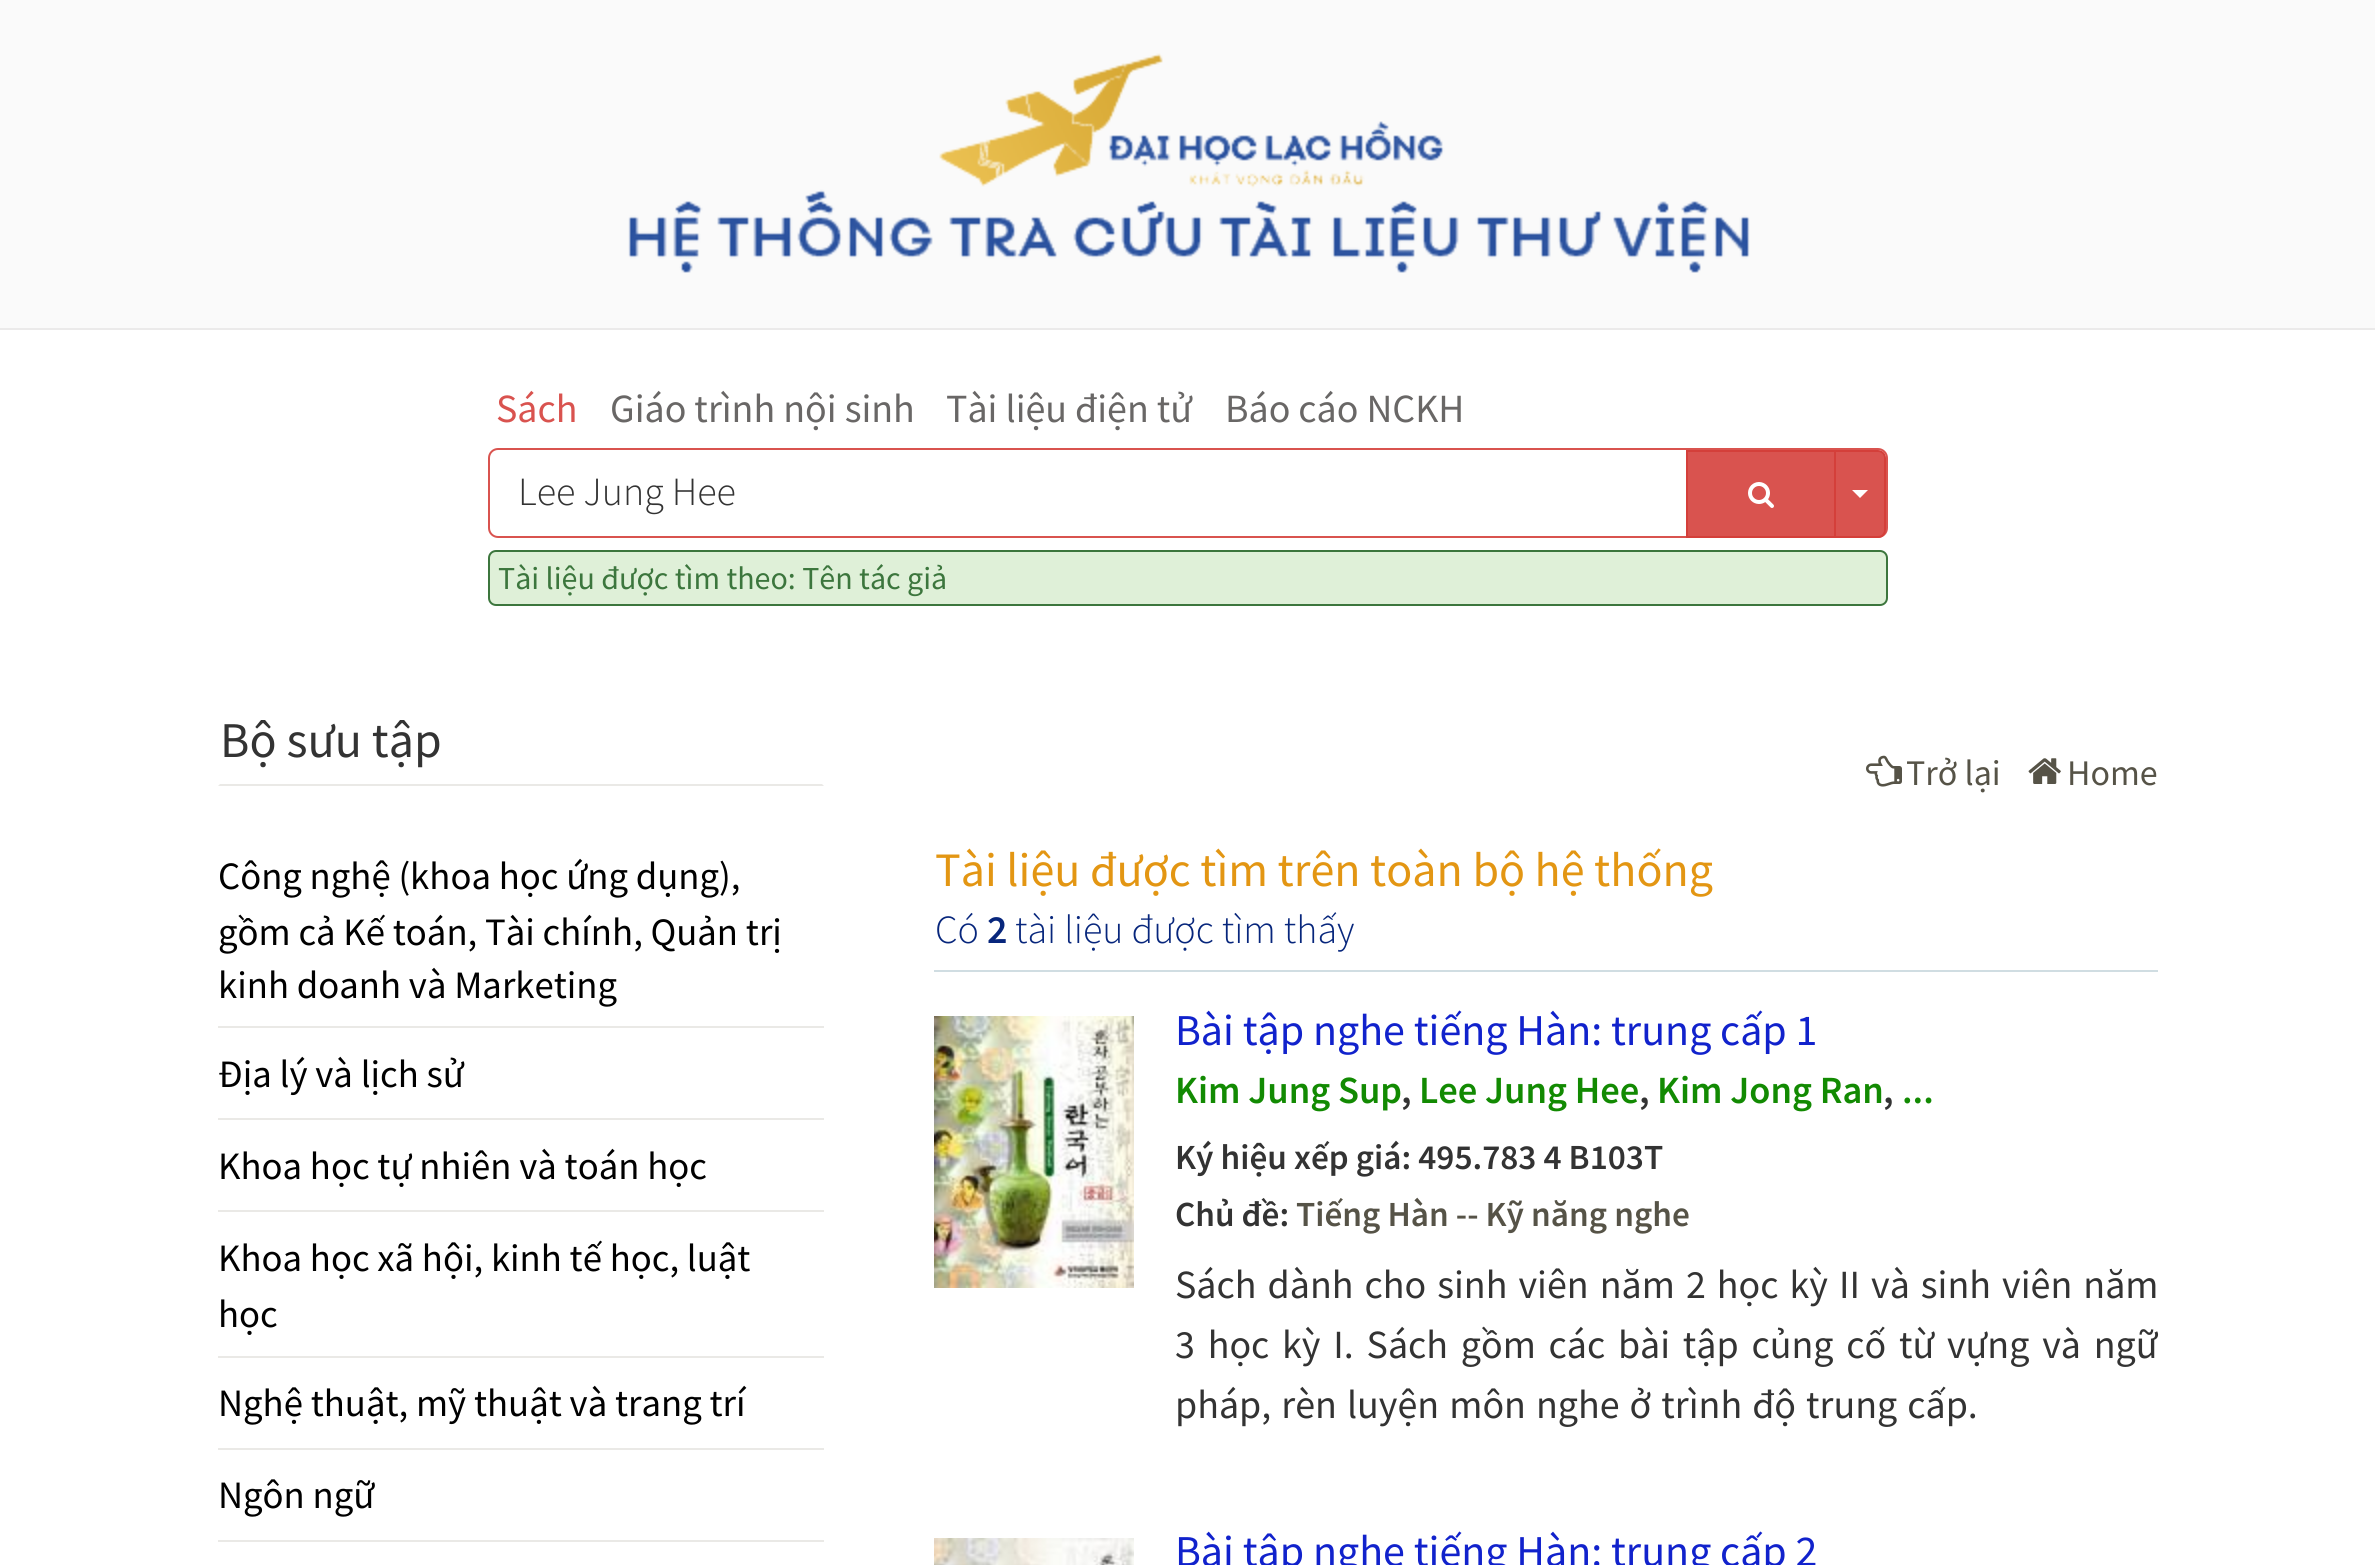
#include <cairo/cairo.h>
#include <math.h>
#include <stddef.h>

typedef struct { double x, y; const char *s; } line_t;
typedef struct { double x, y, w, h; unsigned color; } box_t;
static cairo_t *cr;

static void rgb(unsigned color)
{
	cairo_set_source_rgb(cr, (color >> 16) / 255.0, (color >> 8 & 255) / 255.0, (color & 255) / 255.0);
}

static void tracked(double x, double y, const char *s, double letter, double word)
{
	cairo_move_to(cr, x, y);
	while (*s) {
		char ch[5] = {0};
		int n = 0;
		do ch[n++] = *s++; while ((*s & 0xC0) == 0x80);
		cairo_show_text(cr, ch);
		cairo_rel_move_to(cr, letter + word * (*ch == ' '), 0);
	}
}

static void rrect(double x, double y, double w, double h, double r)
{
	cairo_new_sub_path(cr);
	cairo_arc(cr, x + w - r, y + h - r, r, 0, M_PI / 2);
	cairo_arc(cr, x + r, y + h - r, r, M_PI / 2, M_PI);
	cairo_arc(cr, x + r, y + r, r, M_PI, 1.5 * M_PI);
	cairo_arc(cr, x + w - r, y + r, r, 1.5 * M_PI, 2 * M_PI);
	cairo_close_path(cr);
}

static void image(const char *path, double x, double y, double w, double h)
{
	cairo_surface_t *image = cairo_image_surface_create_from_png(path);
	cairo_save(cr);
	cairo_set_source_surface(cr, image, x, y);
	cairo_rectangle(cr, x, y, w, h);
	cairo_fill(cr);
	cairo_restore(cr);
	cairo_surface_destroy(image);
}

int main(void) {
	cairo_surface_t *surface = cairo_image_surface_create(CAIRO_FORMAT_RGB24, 2375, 1565);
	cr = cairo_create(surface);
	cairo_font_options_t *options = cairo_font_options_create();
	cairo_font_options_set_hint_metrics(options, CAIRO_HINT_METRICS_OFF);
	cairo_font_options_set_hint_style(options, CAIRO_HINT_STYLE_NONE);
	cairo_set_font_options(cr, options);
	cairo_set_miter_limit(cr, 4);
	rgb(0xffffff);
	cairo_paint(cr);
	rgb(0xfafafa);
	cairo_rectangle(cr, 0, 0, 2375, 328);
	cairo_fill(cr);
	rgb(0xebeaea);
	cairo_rectangle(cr, 0, 328, 2375, 2);
	cairo_fill(cr);
	image("img/1.png", 628, 53, 1122, 220);
	rrect(489, 449, 1398, 88, 9);
	rgb(0xd9534f);
	cairo_stroke(cr);
	cairo_rectangle(cr, 1687, 451, 148, 86);
	cairo_fill_preserve(cr);
	rgb(0xd43f3a);
	cairo_stroke(cr);
	image("img/2.png", 1748, 482, 26, 26);
	rgb(0xd9534f);
	cairo_new_path(cr);
	cairo_move_to(cr, 1835, 451);
	cairo_line_to(cr, 1878, 451);
	cairo_curve_to(cr, 1882, 451, 1885, 454, 1885, 458);
	cairo_line_to(cr, 1885, 530);
	cairo_curve_to(cr, 1885, 534, 1882, 537, 1878, 537);
	cairo_line_to(cr, 1835, 537);
	cairo_close_path(cr);
	cairo_fill_preserve(cr);
	rgb(0xd43f3a);
	cairo_stroke(cr);
	rgb(0xffffff);
	cairo_new_path(cr);
	cairo_move_to(cr, 1852, 490);
	cairo_line_to(cr, 1868, 490);
	cairo_line_to(cr, 1860, 498);
	cairo_close_path(cr);
	cairo_fill(cr);
	rgb(0xdff0d8);
	rrect(489, 551, 1398, 54, 7);
	cairo_fill_preserve(cr);
	rgb(0x3c763d);
	cairo_stroke(cr);
	rgb(0xeae9e6);
	cairo_new_path(cr);
	cairo_move_to(cr, 824, 786);
	cairo_line_to(cr, 218, 786);
	cairo_line_to(cr, 220, 784);
	cairo_line_to(cr, 822, 784);
	cairo_close_path(cr);
	cairo_fill(cr);
	{
		static const box_t items[] = {
			{218, 1026, 606, 2, 0xeae9e6},
			{218, 1118, 606, 2, 0xeae9e6},
			{218, 1210, 606, 2, 0xeae9e6},
			{218, 1356, 606, 2, 0xeae9e6},
			{218, 1448, 606, 2, 0xeae9e6},
			{218, 1540, 606, 2, 0xeae9e6},
		};
		for (size_t i = 0; i < sizeof items / sizeof *items; i++) {
			rgb(items[i].color);
			cairo_rectangle(cr, items[i].x, items[i].y, items[i].w, items[i].h);
			cairo_fill(cr);
		}
	}
	image("img/3.png", 1866, 755, 36, 32);
	image("img/4.png", 2028, 758, 33, 26);
	rgb(0xd0dde2);
	cairo_rectangle(cr, 934, 970, 1224, 2);
	cairo_fill(cr);
	image("img/5.png", 934, 1016, 200, 272);
	image("img/6.png", 934, 1538, 200, 27);
	cairo_select_font_face(cr, "Source Sans Pro", CAIRO_FONT_SLANT_NORMAL, CAIRO_FONT_WEIGHT_NORMAL);
	cairo_set_font_size(cr, 40);
	rgb(0xd9534f);
	cairo_move_to(cr, 496, 422);
	cairo_show_text(cr, "Sách");
	rgb(0x696766);
	{
		static const line_t items[] = {
			{610, 422, "Giáo trình nội sinh"},
			{946, 422, "Tài liệu điện tử"},
			{1225, 422, "Báo cáo NCKH"},
		};
		for (size_t i = 0; i < sizeof items / sizeof *items; i++) {
			cairo_move_to(cr, items[i].x, items[i].y);
			cairo_show_text(cr, items[i].s);
		}
	}
	cairo_select_font_face(cr, "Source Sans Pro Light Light", CAIRO_FONT_SLANT_NORMAL, CAIRO_FONT_WEIGHT_NORMAL);
	rgb(0x333333);
	cairo_move_to(cr, 518, 505);
	cairo_show_text(cr, "Lee Jung Hee");
	cairo_select_font_face(cr, "Source Sans Pro", CAIRO_FONT_SLANT_NORMAL, CAIRO_FONT_WEIGHT_NORMAL);
	cairo_set_font_size(cr, 32);
	rgb(0x3c763d);
	cairo_move_to(cr, 498, 589);
	cairo_show_text(cr, "Tài liệu được tìm theo: Tên tác giả");
	cairo_set_font_size(cr, 50);
	rgb(0x333333);
	cairo_move_to(cr, 220, 757);
	cairo_show_text(cr, "Bộ sưu tập");
	cairo_set_font_size(cr, 38.75);
	rgb(0x000000);
	{
		static const line_t items[] = {
			{218, 889, "Công nghệ (khoa học ứng dụng),"},
			{218, 945, "gồm cả Kế toán, Tài chính, Quản trị"},
			{218, 998, "kinh doanh và Marketing"},
			{218, 1087, "Địa lý và lịch sử"},
			{218, 1179, "Khoa học tự nhiên và toán học"},
			{218, 1271, "Khoa học xã hội, kinh tế học, luật"},
			{218, 1327, "học"},
			{218, 1416, "Nghệ thuật, mỹ thuật và trang trí"},
			{218, 1508, "Ngôn ngữ"},
		};
		for (size_t i = 0; i < sizeof items / sizeof *items; i++) {
			cairo_move_to(cr, items[i].x, items[i].y);
			cairo_show_text(cr, items[i].s);
		}
	}
	cairo_set_font_size(cr, 36);
	rgb(0x565347);
	cairo_move_to(cr, 1906, 785);
	cairo_show_text(cr, "Trở lại");
	cairo_move_to(cr, 2067, 785);
	cairo_show_text(cr, "Home");
	cairo_set_font_size(cr, 48);
	rgb(0xe39613);
	cairo_move_to(cr, 935, 886);
	cairo_show_text(cr, "Tài liệu được tìm trên toàn bộ hệ thống");
	cairo_select_font_face(cr, "Source Sans Pro Light Light", CAIRO_FONT_SLANT_NORMAL, CAIRO_FONT_WEIGHT_NORMAL);
	cairo_set_font_size(cr, 40);
	rgb(0x07267c);
	cairo_move_to(cr, 935, 943);
	cairo_show_text(cr, "Có");
	cairo_select_font_face(cr, "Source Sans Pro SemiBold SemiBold", CAIRO_FONT_SLANT_NORMAL, CAIRO_FONT_WEIGHT_NORMAL);
	cairo_move_to(cr, 987, 943);
	cairo_show_text(cr, "2");
	cairo_select_font_face(cr, "Source Sans Pro Light Light", CAIRO_FONT_SLANT_NORMAL, CAIRO_FONT_WEIGHT_NORMAL);
	cairo_move_to(cr, 1015, 943);
	cairo_show_text(cr, "tài liệu được tìm thấy");
	cairo_select_font_face(cr, "Source Sans Pro", CAIRO_FONT_SLANT_NORMAL, CAIRO_FONT_WEIGHT_NORMAL);
	cairo_set_font_size(cr, 44);
	rgb(0x1122cc);
	cairo_move_to(cr, 1175, 1045);
	cairo_show_text(cr, "Bài tập nghe tiếng Hàn: trung cấp 1");
	cairo_select_font_face(cr, "Source Sans Pro SemiBold SemiBold", CAIRO_FONT_SLANT_NORMAL, CAIRO_FONT_WEIGHT_NORMAL);
	cairo_set_font_size(cr, 38.5);
	rgb(0x128a02);
	cairo_move_to(cr, 1175, 1103);
	cairo_show_text(cr, "Kim Jung Sup");
	rgb(0x333333);
	cairo_move_to(cr, 1401, 1103);
	cairo_show_text(cr, ",");
	rgb(0x128a02);
	cairo_move_to(cr, 1419, 1103);
	cairo_show_text(cr, "Lee Jung Hee");
	rgb(0x333333);
	cairo_move_to(cr, 1639, 1103);
	cairo_show_text(cr, ",");
	rgb(0x128a02);
	cairo_move_to(cr, 1657, 1103);
	cairo_show_text(cr, "Kim Jong Ran");
	rgb(0x333333);
	cairo_move_to(cr, 1883, 1103);
	cairo_show_text(cr, ",");
	rgb(0x128a02);
	cairo_move_to(cr, 1902, 1103);
	cairo_show_text(cr, "...");
	cairo_set_font_size(cr, 35.25);
	rgb(0x333333);
	cairo_move_to(cr, 1175, 1169);
	cairo_show_text(cr, "Ký hiệu xếp giá: 495.783 4 B103T");
	cairo_move_to(cr, 1175, 1226);
	cairo_show_text(cr, "Chủ đề:");
	rgb(0x565347);
	cairo_move_to(cr, 1296, 1226);
	cairo_show_text(cr, "Tiếng Hàn -- Kỹ năng nghe");
	cairo_select_font_face(cr, "Source Sans Pro", CAIRO_FONT_SLANT_NORMAL, CAIRO_FONT_WEIGHT_NORMAL);
	cairo_set_font_size(cr, 40);
	rgb(0x333333);
	tracked(1175, 1298, "Sách dành cho sinh viên năm 2 học kỳ II và sinh viên năm", 0, 3);
	tracked(1175, 1358, "3 học kỳ I. Sách gồm các bài tập củng cố từ vựng và ngữ", 0, 4.75);
	tracked(1175, 1418, "pháp, rèn luyện môn nghe ở trình độ trung cấp.", 0, 2);
	cairo_set_font_size(cr, 44);
	rgb(0x1122cc);
	cairo_move_to(cr, 1175, 1566);
	cairo_show_text(cr, "Bài tập nghe tiếng Hàn: trung cấp 2");
	cairo_surface_write_to_png(surface, "page.png");
	cairo_font_options_destroy(options);
	cairo_destroy(cr);
	cairo_surface_destroy(surface);
	return 0;
}
